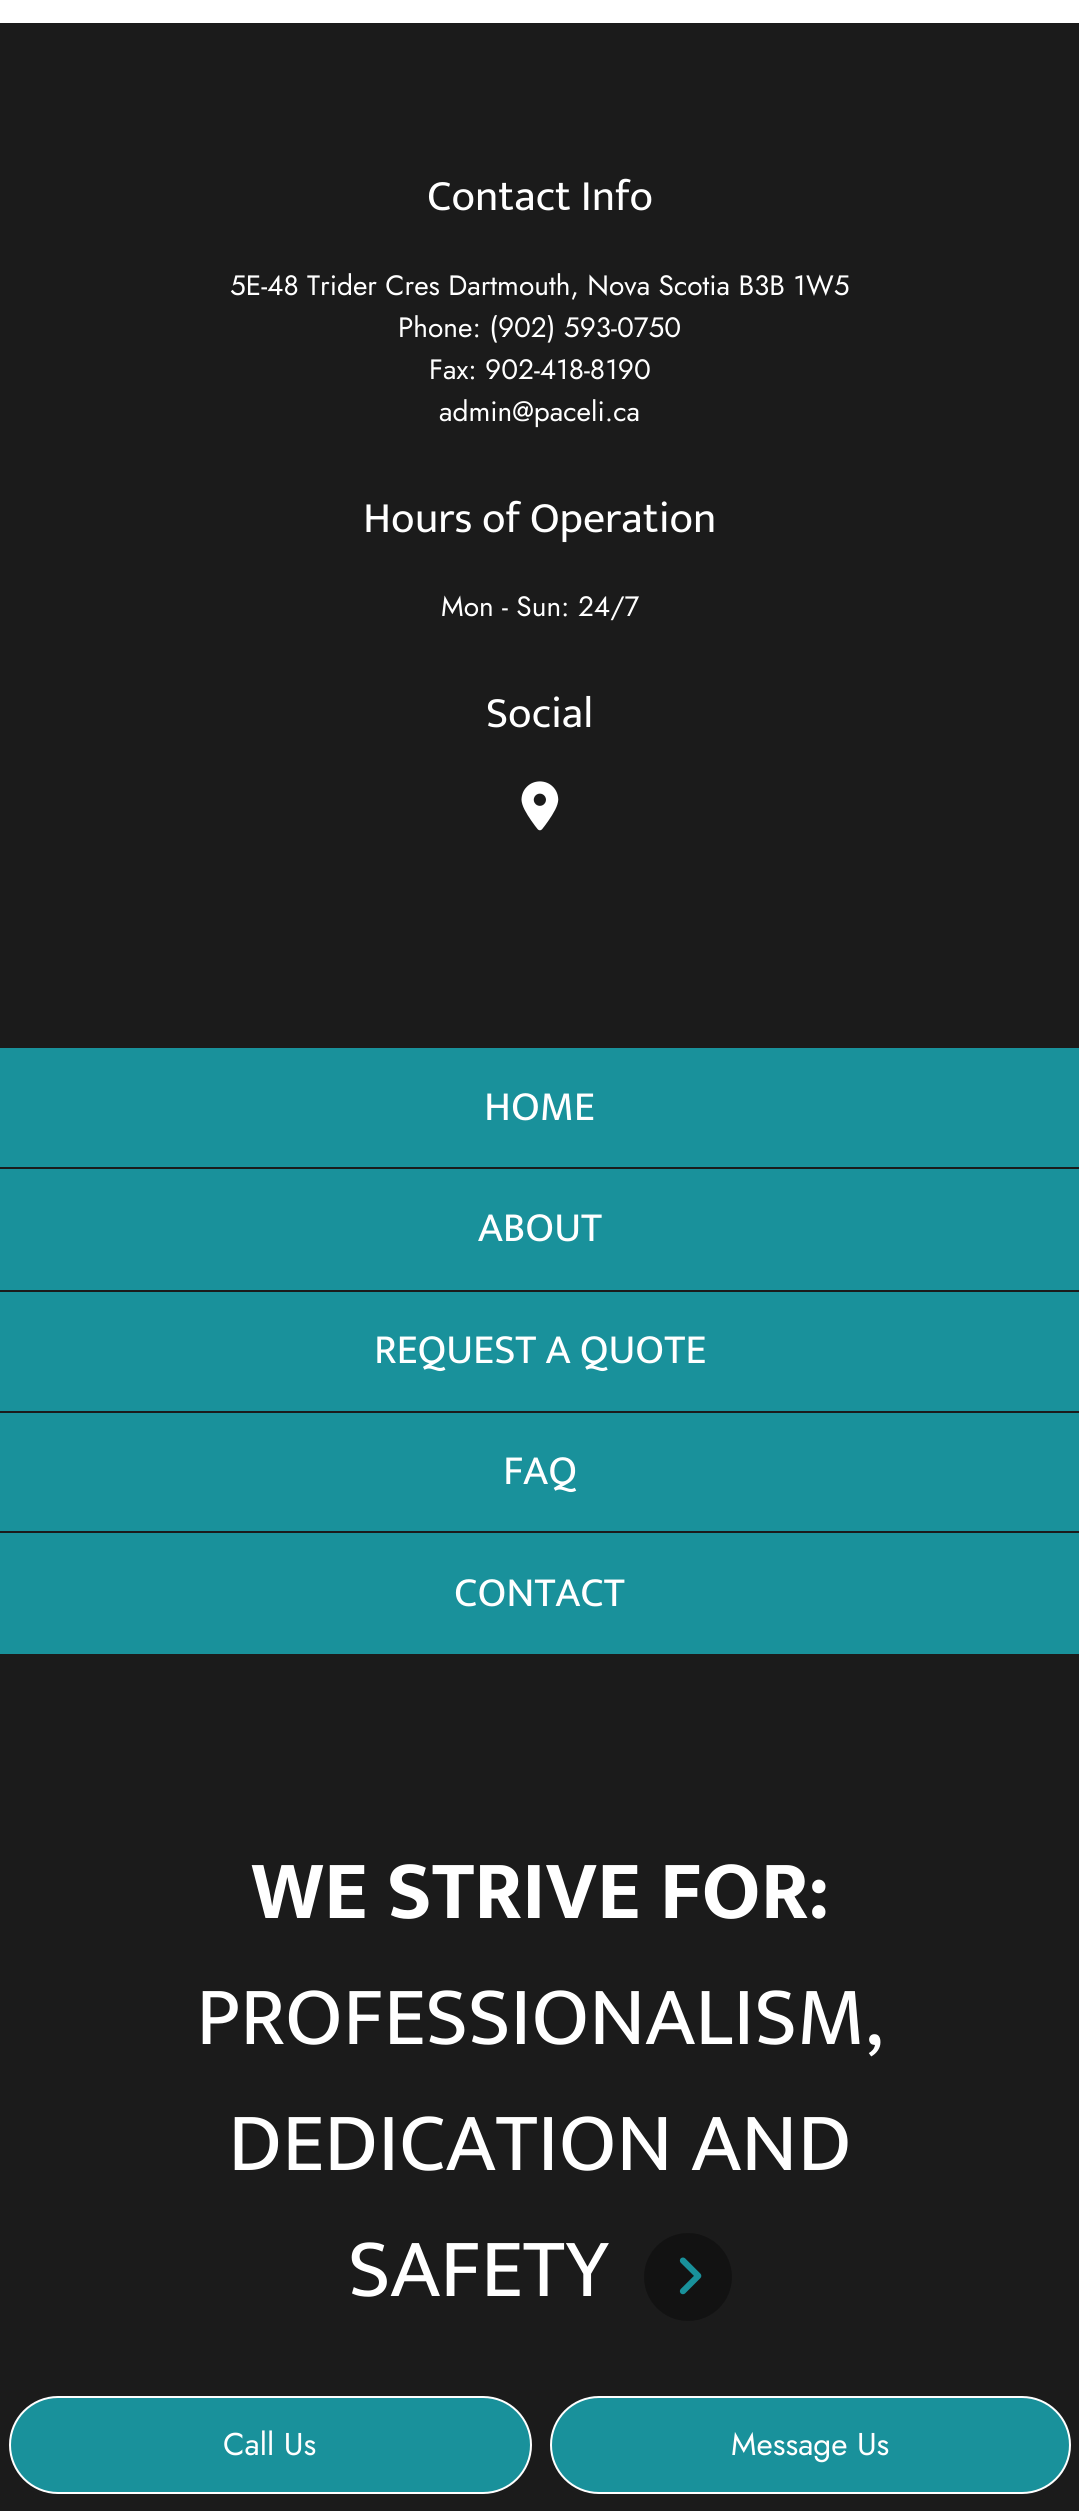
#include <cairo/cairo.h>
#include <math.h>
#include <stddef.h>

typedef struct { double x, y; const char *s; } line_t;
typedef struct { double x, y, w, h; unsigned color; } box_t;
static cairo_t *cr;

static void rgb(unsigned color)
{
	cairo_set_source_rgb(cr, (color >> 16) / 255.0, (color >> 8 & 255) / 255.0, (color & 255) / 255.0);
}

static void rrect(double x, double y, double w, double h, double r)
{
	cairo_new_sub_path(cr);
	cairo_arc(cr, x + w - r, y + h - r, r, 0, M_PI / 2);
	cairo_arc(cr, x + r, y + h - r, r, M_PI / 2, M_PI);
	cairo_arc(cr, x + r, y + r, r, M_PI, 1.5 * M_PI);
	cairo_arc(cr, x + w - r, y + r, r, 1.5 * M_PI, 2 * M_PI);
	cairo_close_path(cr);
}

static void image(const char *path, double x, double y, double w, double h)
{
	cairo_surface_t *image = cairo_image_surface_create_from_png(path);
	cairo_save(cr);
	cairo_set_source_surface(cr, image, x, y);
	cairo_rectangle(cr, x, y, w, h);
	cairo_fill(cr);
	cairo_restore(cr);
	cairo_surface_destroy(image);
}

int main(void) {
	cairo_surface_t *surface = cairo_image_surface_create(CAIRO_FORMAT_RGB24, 1079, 2511);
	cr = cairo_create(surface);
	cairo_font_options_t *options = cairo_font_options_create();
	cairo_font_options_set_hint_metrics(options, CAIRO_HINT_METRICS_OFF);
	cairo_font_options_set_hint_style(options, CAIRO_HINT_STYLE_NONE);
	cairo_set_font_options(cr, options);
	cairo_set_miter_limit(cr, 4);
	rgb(0xffffff);
	cairo_paint(cr);
	rgb(0x1b1b1b);
	cairo_rectangle(cr, 0, 23, 1079, 2488);
	cairo_fill(cr);
	image("img/1.png", 521, 781, 38, 50);
	{
		static const box_t items[] = {
			{0, 1048, 1079, 606, 0x19919b},
			{0, 1167, 1079, 2, 0x1b1b1b},
			{0, 1290, 1079, 2, 0x1b1b1b},
			{0, 1411, 1079, 2, 0x1b1b1b},
			{0, 1531, 1079, 2, 0x1b1b1b},
		};
		for (size_t i = 0; i < sizeof items / sizeof *items; i++) {
			rgb(items[i].color);
			cairo_rectangle(cr, items[i].x, items[i].y, items[i].w, items[i].h);
			cairo_fill(cr);
		}
	}
	rgb(0x121212);
	cairo_arc(cr, 688, 2277, 44, 0, 2 * M_PI);
	cairo_fill(cr);
	image("img/2.png", 679, 2257, 23, 38);
	rgb(0x19919b);
	rrect(10, 2397, 521, 96, 48);
	cairo_fill_preserve(cr);
	rgb(0xffffff);
	cairo_stroke(cr);
	rgb(0x19919b);
	rrect(551, 2397, 519, 96, 48);
	cairo_fill_preserve(cr);
	rgb(0xffffff);
	cairo_stroke(cr);
	cairo_select_font_face(cr, "Mukta", CAIRO_FONT_SLANT_NORMAL, CAIRO_FONT_WEIGHT_NORMAL);
	cairo_set_font_size(cr, 43.75);
	cairo_move_to(cr, 427, 210);
	cairo_show_text(cr, "Contact Info");
	cairo_select_font_face(cr, "Jost", CAIRO_FONT_SLANT_NORMAL, CAIRO_FONT_WEIGHT_NORMAL);
	cairo_set_font_size(cr, 28);
	{
		static const line_t items[] = {
			{230, 295, "5E-48 Trider Cres Dartmouth, Nova Scotia B3B 1W5"},
			{398, 337, "Phone: (902) 593-0750"},
			{429, 379, "Fax: 902-418-8190"},
			{439, 421, "admin@paceli.ca"},
		};
		for (size_t i = 0; i < sizeof items / sizeof *items; i++) {
			cairo_move_to(cr, items[i].x, items[i].y);
			cairo_show_text(cr, items[i].s);
		}
	}
	cairo_select_font_face(cr, "Mukta", CAIRO_FONT_SLANT_NORMAL, CAIRO_FONT_WEIGHT_NORMAL);
	cairo_set_font_size(cr, 43.75);
	cairo_move_to(cr, 363, 532);
	cairo_show_text(cr, "Hours of Operation");
	cairo_select_font_face(cr, "Jost", CAIRO_FONT_SLANT_NORMAL, CAIRO_FONT_WEIGHT_NORMAL);
	cairo_set_font_size(cr, 28);
	cairo_move_to(cr, 441, 616);
	cairo_show_text(cr, "Mon - Sun: 24/7");
	cairo_select_font_face(cr, "Mukta", CAIRO_FONT_SLANT_NORMAL, CAIRO_FONT_WEIGHT_NORMAL);
	cairo_set_font_size(cr, 43.75);
	cairo_move_to(cr, 486, 727);
	cairo_show_text(cr, "Social");
	cairo_set_font_size(cr, 42);
	{
		static const line_t items[] = {
			{484, 1120, "HOME"},
			{478, 1241, "ABOUT"},
			{374, 1363, "REQUEST A QUOTE"},
			{503, 1484, "FAQ"},
			{454, 1606, "CONTACT"},
		};
		for (size_t i = 0; i < sizeof items / sizeof *items; i++) {
			cairo_move_to(cr, items[i].x, items[i].y);
			cairo_show_text(cr, items[i].s);
		}
	}
	cairo_select_font_face(cr, "Mukta", CAIRO_FONT_SLANT_NORMAL, CAIRO_FONT_WEIGHT_BOLD);
	cairo_set_font_size(cr, 84);
	cairo_move_to(cr, 251, 1918);
	cairo_show_text(cr, "WE STRIVE FOR:");
	cairo_select_font_face(cr, "Mukta", CAIRO_FONT_SLANT_NORMAL, CAIRO_FONT_WEIGHT_NORMAL);
	{
		static const line_t items[] = {
			{196, 2044, "PROFESSIONALISM,"},
			{228, 2170, "DEDICATION AND"},
			{348, 2296, "SAFETY"},
		};
		for (size_t i = 0; i < sizeof items / sizeof *items; i++) {
			cairo_move_to(cr, items[i].x, items[i].y);
			cairo_show_text(cr, items[i].s);
		}
	}
	cairo_select_font_face(cr, "Jost", CAIRO_FONT_SLANT_NORMAL, CAIRO_FONT_WEIGHT_NORMAL);
	cairo_set_font_size(cr, 31.5);
	cairo_move_to(cr, 223, 2455);
	cairo_show_text(cr, "Call Us");
	cairo_move_to(cr, 731, 2455);
	cairo_show_text(cr, "Message Us");
	cairo_surface_write_to_png(surface, "page.png");
	cairo_font_options_destroy(options);
	cairo_destroy(cr);
	cairo_surface_destroy(surface);
	return 0;
}
